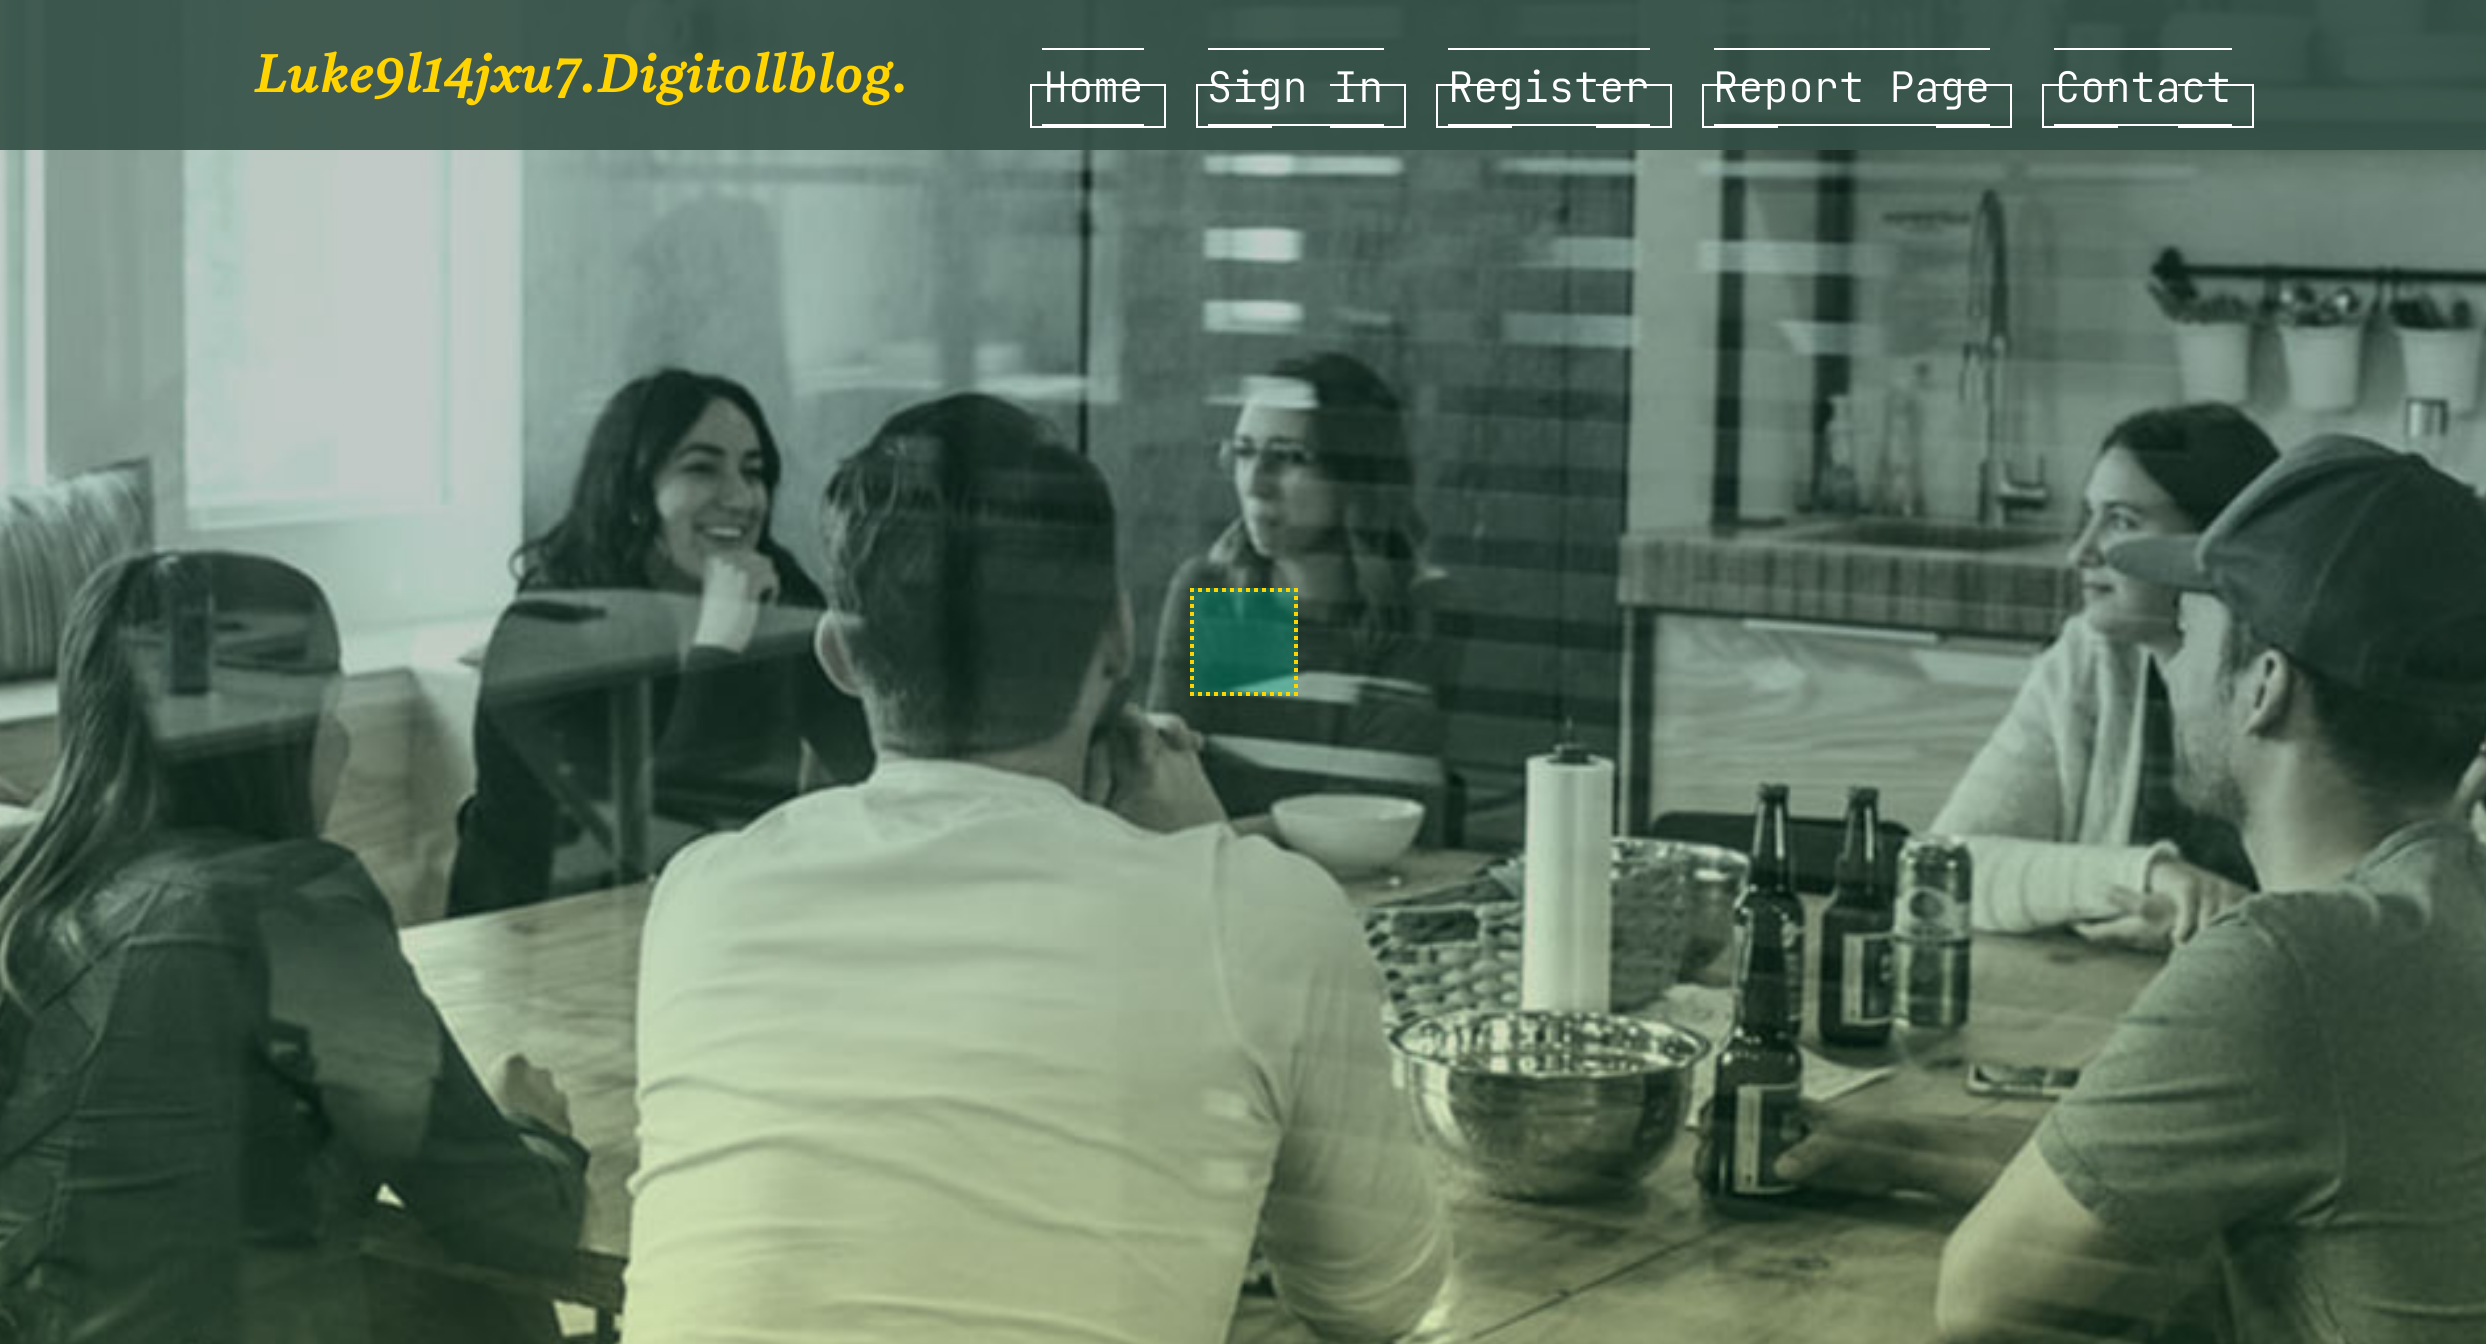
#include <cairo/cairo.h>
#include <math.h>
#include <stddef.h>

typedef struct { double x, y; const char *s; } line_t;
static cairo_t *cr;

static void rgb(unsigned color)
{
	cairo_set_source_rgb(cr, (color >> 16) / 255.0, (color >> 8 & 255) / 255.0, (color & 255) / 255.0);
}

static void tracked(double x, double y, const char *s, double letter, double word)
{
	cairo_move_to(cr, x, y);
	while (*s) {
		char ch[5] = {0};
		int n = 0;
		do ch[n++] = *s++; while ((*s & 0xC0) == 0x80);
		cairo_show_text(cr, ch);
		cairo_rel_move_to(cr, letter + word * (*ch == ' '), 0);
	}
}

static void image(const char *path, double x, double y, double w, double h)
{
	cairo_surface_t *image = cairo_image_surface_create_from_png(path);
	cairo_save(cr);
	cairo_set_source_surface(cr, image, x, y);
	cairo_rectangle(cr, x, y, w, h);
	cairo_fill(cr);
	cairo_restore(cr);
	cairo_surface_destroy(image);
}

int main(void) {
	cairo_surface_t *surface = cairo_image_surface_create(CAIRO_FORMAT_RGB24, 2486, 1344);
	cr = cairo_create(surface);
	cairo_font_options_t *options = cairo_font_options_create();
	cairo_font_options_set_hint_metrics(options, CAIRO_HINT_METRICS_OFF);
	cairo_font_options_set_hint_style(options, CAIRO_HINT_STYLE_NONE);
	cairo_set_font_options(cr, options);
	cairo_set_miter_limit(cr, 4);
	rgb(0xffffff);
	cairo_paint(cr);
	image("img/1.png", 0, 0, 2486, 1344);
	cairo_set_source_rgba(cr, 0.039, 0.824, 0.678, 0.3);
	cairo_rectangle(cr, 1190, 588, 108, 108);
	cairo_fill(cr);
	cairo_new_path(cr);
	cairo_move_to(cr, 1190, 590);
	cairo_line_to(cr, 1298, 590);
	rgb(0xffd400);
	cairo_set_line_width(cr, 4);
	cairo_set_dash(cr, (double[]){4, 4}, 2, 0);
	cairo_stroke(cr);
	cairo_new_path(cr);
	cairo_move_to(cr, 1296, 588);
	cairo_line_to(cr, 1296, 696);
	cairo_stroke(cr);
	cairo_new_path(cr);
	cairo_move_to(cr, 1190, 694);
	cairo_line_to(cr, 1298, 694);
	cairo_stroke(cr);
	cairo_new_path(cr);
	cairo_move_to(cr, 1192, 588);
	cairo_line_to(cr, 1192, 696);
	cairo_stroke(cr);
	cairo_set_source_rgba(cr, 0.2, 0.31, 0.271, 0.9);
	cairo_rectangle(cr, 0, 0, 2486, 150);
	cairo_fill(cr);
	rgb(0xffffff);
	cairo_rectangle(cr, 1030, 84, 136, 2);
	cairo_fill(cr);
	cairo_rectangle(cr, 1030, 126, 60, 2);
	cairo_fill(cr);
	cairo_rectangle(cr, 1030, 84, 2, 44);
	cairo_fill(cr);
	cairo_rectangle(cr, 1042, 48, 102, 2);
	cairo_fill(cr);
	cairo_rectangle(cr, 1042, 124, 102, 2);
	cairo_fill(cr);
	cairo_rectangle(cr, 1164, 84, 2, 44);
	cairo_fill(cr);
	cairo_rectangle(cr, 1090, 126, 76, 2);
	cairo_fill(cr);
	cairo_rectangle(cr, 1196, 84, 76, 2);
	cairo_fill(cr);
	cairo_rectangle(cr, 1196, 126, 76, 2);
	cairo_fill(cr);
	cairo_rectangle(cr, 1196, 84, 2, 44);
	cairo_fill(cr);
	cairo_rectangle(cr, 1208, 48, 176, 2);
	cairo_fill(cr);
	cairo_rectangle(cr, 1208, 124, 176, 2);
	cairo_fill(cr);
	cairo_rectangle(cr, 1330, 84, 76, 2);
	cairo_fill(cr);
	cairo_rectangle(cr, 1404, 84, 2, 44);
	cairo_fill(cr);
	cairo_rectangle(cr, 1330, 126, 76, 2);
	cairo_fill(cr);
	cairo_rectangle(cr, 1436, 84, 76, 2);
	cairo_fill(cr);
	cairo_rectangle(cr, 1436, 126, 76, 2);
	cairo_fill(cr);
	cairo_rectangle(cr, 1436, 84, 2, 44);
	cairo_fill(cr);
	cairo_rectangle(cr, 1448, 48, 202, 2);
	cairo_fill(cr);
	cairo_rectangle(cr, 1448, 124, 202, 2);
	cairo_fill(cr);
	cairo_rectangle(cr, 1596, 84, 76, 2);
	cairo_fill(cr);
	cairo_rectangle(cr, 1670, 84, 2, 44);
	cairo_fill(cr);
	cairo_rectangle(cr, 1596, 126, 76, 2);
	cairo_fill(cr);
	cairo_rectangle(cr, 1702, 84, 76, 2);
	cairo_fill(cr);
	cairo_rectangle(cr, 1702, 126, 76, 2);
	cairo_fill(cr);
	cairo_rectangle(cr, 1702, 84, 2, 44);
	cairo_fill(cr);
	cairo_rectangle(cr, 1714, 48, 276, 2);
	cairo_fill(cr);
	cairo_rectangle(cr, 1714, 124, 276, 2);
	cairo_fill(cr);
	cairo_rectangle(cr, 1936, 84, 76, 2);
	cairo_fill(cr);
	cairo_rectangle(cr, 2010, 84, 2, 44);
	cairo_fill(cr);
	cairo_rectangle(cr, 1936, 126, 76, 2);
	cairo_fill(cr);
	cairo_rectangle(cr, 2042, 84, 76, 2);
	cairo_fill(cr);
	cairo_rectangle(cr, 2042, 126, 76, 2);
	cairo_fill(cr);
	cairo_rectangle(cr, 2042, 84, 2, 44);
	cairo_fill(cr);
	cairo_rectangle(cr, 2054, 48, 178, 2);
	cairo_fill(cr);
	cairo_rectangle(cr, 2054, 124, 178, 2);
	cairo_fill(cr);
	cairo_rectangle(cr, 2178, 84, 76, 2);
	cairo_fill(cr);
	cairo_rectangle(cr, 2252, 84, 2, 44);
	cairo_fill(cr);
	cairo_rectangle(cr, 2178, 126, 76, 2);
	cairo_fill(cr);
	cairo_select_font_face(cr, "Castoro", CAIRO_FONT_SLANT_ITALIC, CAIRO_FONT_WEIGHT_BOLD);
	cairo_set_font_size(cr, 52);
	rgb(0xffd400);
	tracked(255, 92, "Luke9l14jxu7.Digitollblog.", 2, 0);
	cairo_select_font_face(cr, "JetBrains Mono Light", CAIRO_FONT_SLANT_NORMAL, CAIRO_FONT_WEIGHT_NORMAL);
	cairo_set_font_size(cr, 42);
	rgb(0xffffff);
	{
		static const line_t items[] = {
			{1043, 102, "Home"},
			{1207, 102, "Sign In"},
			{1448, 102, "Register"},
			{1713, 102, "Report Page"},
			{2055, 102, "Contact"},
		};
		for (size_t i = 0; i < sizeof items / sizeof *items; i++) {
			cairo_move_to(cr, items[i].x, items[i].y);
			cairo_show_text(cr, items[i].s);
		}
	}
	cairo_surface_write_to_png(surface, "page.png");
	cairo_font_options_destroy(options);
	cairo_destroy(cr);
	cairo_surface_destroy(surface);
	return 0;
}
